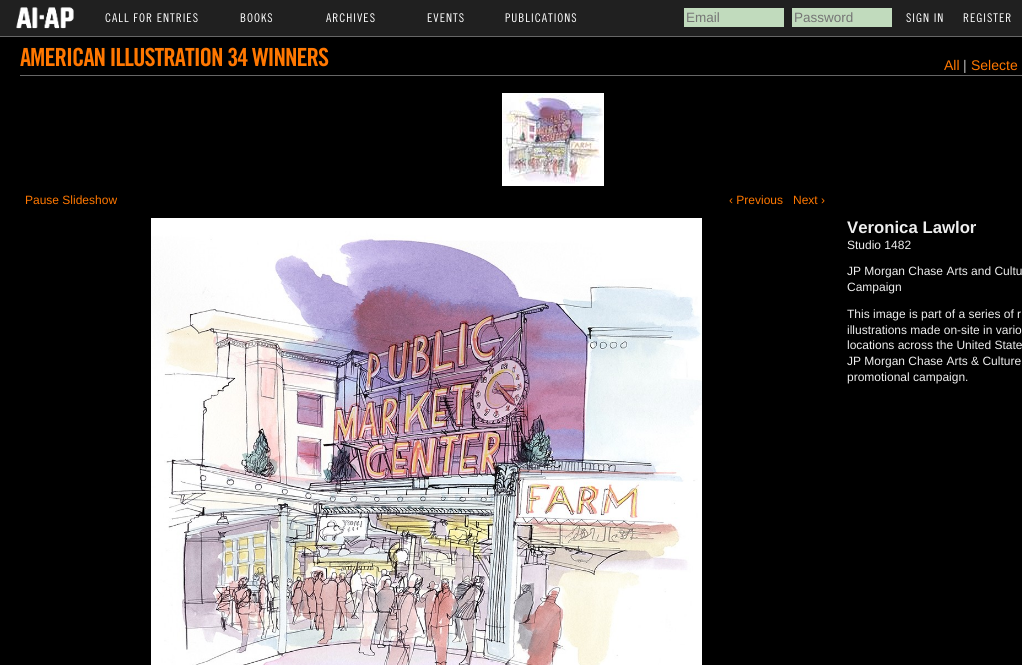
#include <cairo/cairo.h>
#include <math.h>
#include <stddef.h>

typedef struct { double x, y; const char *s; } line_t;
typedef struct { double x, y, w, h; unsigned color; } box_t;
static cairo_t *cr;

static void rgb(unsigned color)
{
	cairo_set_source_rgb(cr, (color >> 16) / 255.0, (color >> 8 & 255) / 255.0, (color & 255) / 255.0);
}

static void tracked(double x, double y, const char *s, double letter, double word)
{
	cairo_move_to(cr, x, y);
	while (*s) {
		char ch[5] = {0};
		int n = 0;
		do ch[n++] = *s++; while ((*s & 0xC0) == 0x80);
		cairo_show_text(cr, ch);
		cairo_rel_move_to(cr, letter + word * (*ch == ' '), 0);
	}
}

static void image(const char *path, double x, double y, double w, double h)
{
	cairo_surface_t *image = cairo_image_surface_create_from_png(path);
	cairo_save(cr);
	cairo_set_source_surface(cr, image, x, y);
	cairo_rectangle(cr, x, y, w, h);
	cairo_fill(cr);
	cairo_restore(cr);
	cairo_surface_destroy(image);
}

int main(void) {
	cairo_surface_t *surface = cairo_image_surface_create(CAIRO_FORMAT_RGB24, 1022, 665);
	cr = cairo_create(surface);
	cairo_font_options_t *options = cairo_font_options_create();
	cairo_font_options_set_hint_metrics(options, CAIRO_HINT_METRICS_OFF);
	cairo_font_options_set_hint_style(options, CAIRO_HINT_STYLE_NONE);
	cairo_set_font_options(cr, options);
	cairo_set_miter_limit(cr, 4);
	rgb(0x666666);
	cairo_paint(cr);
	rgb(0x202020);
	cairo_rectangle(cr, 0, 0, 1022, 36);
	cairo_fill(cr);
	image("img/1.png", 16, 7, 58, 22);
	{
		static const box_t items[] = {
			{684, 8, 100, 19, 0xc1dbbd},
			{792, 8, 100, 19, 0xc1dbbd},
			{0, 37, 1022, 628, 0x000000},
			{20, 75, 1002, 1, 0x666666},
			{502, 93, 102, 93, 0xffffff},
		};
		for (size_t i = 0; i < sizeof items / sizeof *items; i++) {
			rgb(items[i].color);
			cairo_rectangle(cr, items[i].x, items[i].y, items[i].w, items[i].h);
			cairo_fill(cr);
		}
	}
	image("img/2.png", 503, 94, 100, 90);
	image("img/3.png", 151, 218, 551, 447);
	cairo_select_font_face(cr, "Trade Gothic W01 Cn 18", CAIRO_FONT_SLANT_NORMAL, CAIRO_FONT_WEIGHT_NORMAL);
	cairo_set_font_size(cr, 12);
	{
		static const line_t items[] = {
			{105, 22, "CALL FOR ENTRIES"},
			{240, 22, "BOOKS"},
			{326, 22, "ARCHIVES"},
			{427, 22, "EVENTS"},
			{505, 22, "PUBLICATIONS"},
		};
		for (size_t i = 0; i < sizeof items / sizeof *items; i++) {
			tracked(items[i].x, items[i].y, items[i].s, 1, 0);
		}
	}
	cairo_select_font_face(cr, "Liberation Sans", CAIRO_FONT_SLANT_NORMAL, CAIRO_FONT_WEIGHT_NORMAL);
	cairo_set_font_size(cr, 13.5);
	rgb(0x757575);
	cairo_move_to(cr, 686, 22);
	cairo_show_text(cr, "Email");
	cairo_move_to(cr, 794, 22);
	cairo_show_text(cr, "Password");
	cairo_select_font_face(cr, "Trade Gothic W01 Cn 18", CAIRO_FONT_SLANT_NORMAL, CAIRO_FONT_WEIGHT_NORMAL);
	cairo_set_font_size(cr, 12);
	rgb(0xffffff);
	tracked(906, 22, "SIGN IN", 1, 0);
	tracked(963, 22, "REGISTER", 1, 0);
	cairo_select_font_face(cr, "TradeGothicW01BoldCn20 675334", CAIRO_FONT_SLANT_NORMAL, CAIRO_FONT_WEIGHT_BOLD);
	cairo_set_font_size(cr, 25);
	rgb(0xff7700);
	tracked(20, 66, "AMERICAN ILLUSTRATION 34 WINNERS", -1, 0);
	cairo_select_font_face(cr, "Liberation Sans", CAIRO_FONT_SLANT_NORMAL, CAIRO_FONT_WEIGHT_NORMAL);
	cairo_set_font_size(cr, 14);
	cairo_move_to(cr, 944, 70);
	cairo_show_text(cr, "All");
	rgb(0xbbbbbb);
	cairo_move_to(cr, 963, 70);
	cairo_show_text(cr, "|");
	rgb(0xff7700);
	cairo_move_to(cr, 971, 70);
	cairo_show_text(cr, "Selecte");
	cairo_set_font_size(cr, 12);
	{
		static const line_t items[] = {
			{25, 204, "Pause Slideshow"},
			{729, 204, "‹ Previous"},
			{793, 204, "Next ›"},
		};
		for (size_t i = 0; i < sizeof items / sizeof *items; i++) {
			cairo_move_to(cr, items[i].x, items[i].y);
			cairo_show_text(cr, items[i].s);
		}
	}
	cairo_select_font_face(cr, "Liberation Sans", CAIRO_FONT_SLANT_NORMAL, CAIRO_FONT_WEIGHT_BOLD);
	cairo_set_font_size(cr, 16.75);
	rgb(0xeeeeee);
	cairo_move_to(cr, 847, 233);
	cairo_show_text(cr, "Veronica Lawlor");
	cairo_select_font_face(cr, "Liberation Sans", CAIRO_FONT_SLANT_NORMAL, CAIRO_FONT_WEIGHT_NORMAL);
	cairo_set_font_size(cr, 12);
	{
		static const line_t items[] = {
			{847, 249, "Studio 1482"},
			{847, 275, "JP Morgan Chase Arts and Cultu"},
			{847, 291, "Campaign"},
			{847, 318, "This image is part of a series of r"},
			{847, 334, "illustrations made on-site in vario"},
			{847, 349, "locations across the United State"},
			{847, 365, "JP Morgan Chase Arts & Culture"},
			{847, 381, "promotional campaign."},
		};
		for (size_t i = 0; i < sizeof items / sizeof *items; i++) {
			cairo_move_to(cr, items[i].x, items[i].y);
			cairo_show_text(cr, items[i].s);
		}
	}
	cairo_surface_write_to_png(surface, "page.png");
	cairo_font_options_destroy(options);
	cairo_destroy(cr);
	cairo_surface_destroy(surface);
	return 0;
}
